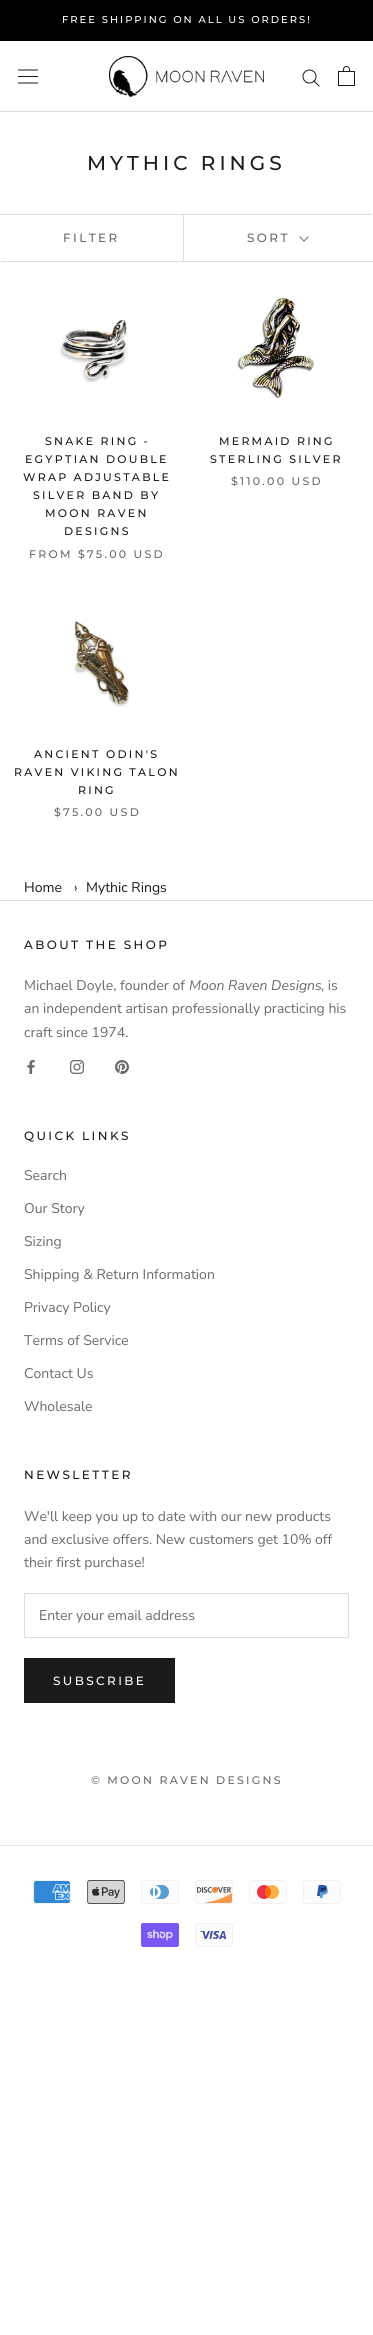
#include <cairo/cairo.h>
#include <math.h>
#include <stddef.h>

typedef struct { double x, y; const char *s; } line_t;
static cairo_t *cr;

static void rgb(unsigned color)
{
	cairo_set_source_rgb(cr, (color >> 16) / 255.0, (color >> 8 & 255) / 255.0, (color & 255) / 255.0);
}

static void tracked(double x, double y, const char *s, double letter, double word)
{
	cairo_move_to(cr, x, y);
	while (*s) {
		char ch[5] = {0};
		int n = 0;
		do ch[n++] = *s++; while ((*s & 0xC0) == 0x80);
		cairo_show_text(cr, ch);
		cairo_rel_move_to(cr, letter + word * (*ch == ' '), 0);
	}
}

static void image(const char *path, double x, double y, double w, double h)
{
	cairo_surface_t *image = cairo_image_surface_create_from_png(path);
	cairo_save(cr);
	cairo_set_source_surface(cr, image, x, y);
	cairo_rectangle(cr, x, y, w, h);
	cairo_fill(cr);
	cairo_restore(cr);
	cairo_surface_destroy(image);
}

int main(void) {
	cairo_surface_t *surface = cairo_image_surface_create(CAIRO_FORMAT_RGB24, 373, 2335);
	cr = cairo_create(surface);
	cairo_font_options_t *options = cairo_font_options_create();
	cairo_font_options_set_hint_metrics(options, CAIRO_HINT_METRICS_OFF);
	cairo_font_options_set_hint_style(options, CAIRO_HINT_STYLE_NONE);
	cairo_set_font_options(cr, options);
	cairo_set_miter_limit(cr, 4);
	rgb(0xffffff);
	cairo_paint(cr);
	rgb(0x000000);
	cairo_rectangle(cr, 0, 0, 373, 41);
	cairo_fill(cr);
	rgb(0xdddddd);
	cairo_rectangle(cr, 0, 111, 373, 1);
	cairo_fill(cr);
	image("img/1.png", 18, 69, 20, 15);
	image("img/2.png", 109, 56, 155, 41);
	cairo_new_path(cr);
	cairo_move_to(cr, 319, 86);
	cairo_line_to(cr, 314, 81);
	rgb(0x1c1b1b);
	cairo_set_line_width(cr, 1);
	cairo_set_line_cap(cr, CAIRO_LINE_CAP_SQUARE);
	cairo_stroke(cr);
	cairo_arc(cr, 309.5, 76.5, 6.5, 0, 2 * M_PI);
	cairo_set_line_cap(cr, CAIRO_LINE_CAP_BUTT);
	cairo_stroke(cr);
	image("img/3.png", 338, 66, 17, 20);
	rgb(0xdddddd);
	cairo_new_path(cr);
	cairo_move_to(cr, -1, 214);
	cairo_line_to(cr, -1, 260);
	cairo_line_to(cr, 0, 260);
	cairo_line_to(cr, 0, 215);
	cairo_line_to(cr, 372, 215);
	cairo_line_to(cr, 372, 214);
	cairo_close_path(cr);
	cairo_fill(cr);
	cairo_new_path(cr);
	cairo_move_to(cr, 1, 261);
	cairo_line_to(cr, 1, 262);
	cairo_line_to(cr, 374, 262);
	cairo_line_to(cr, 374, 216);
	cairo_line_to(cr, 373, 216);
	cairo_line_to(cr, 373, 261);
	cairo_close_path(cr);
	cairo_fill(cr);
	cairo_rectangle(cr, 183, 215, 1, 46);
	cairo_fill(cr);
	cairo_new_path(cr);
	cairo_move_to(cr, 308, 237);
	cairo_line_to(cr, 304, 241);
	cairo_line_to(cr, 300, 237);
	rgb(0x6a6a6a);
	cairo_set_line_cap(cr, CAIRO_LINE_CAP_SQUARE);
	cairo_stroke(cr);
	image("img/4.png", 59, 320, 70, 63);
	image("img/5.png", 237, 295, 77, 104);
	image("img/6.png", 74, 619, 56, 88);
	rgb(0xdddddd);
	cairo_rectangle(cr, 0, 900, 373, 1);
	cairo_fill(cr);
	image("img/7.png", 27, 1060, 8, 14);
	image("img/8.png", 70, 1060, 14, 14);
	image("img/9.png", 115, 1060, 14, 14);
	cairo_rectangle(cr, 24.5, 1593.5, 324, 44);
	cairo_set_line_cap(cr, CAIRO_LINE_CAP_BUTT);
	cairo_stroke(cr);
	cairo_rectangle(cr, 24.5, 1658.5, 150, 44);
	rgb(0x1c1b1b);
	cairo_stroke(cr);
	cairo_rectangle(cr, 25, 1659, 149, 43);
	cairo_fill(cr);
	rgb(0xe9e9e9);
	cairo_rectangle(cr, 0, 1845, 373, 1);
	cairo_fill(cr);
	image("img/10.png", 33, 1880, 38, 24);
	image("img/11.png", 87, 1880, 38, 24);
	image("img/12.png", 141, 1880, 38, 24);
	image("img/13.png", 195, 1880, 38, 24);
	image("img/14.png", 249, 1880, 38, 24);
	image("img/15.png", 303, 1880, 38, 24);
	image("img/16.png", 141, 1923, 38, 24);
	image("img/17.png", 195, 1923, 38, 24);
	cairo_select_font_face(cr, "Montserrat Medium", CAIRO_FONT_SLANT_NORMAL, CAIRO_FONT_WEIGHT_NORMAL);
	cairo_set_font_size(cr, 10);
	rgb(0xffffff);
	tracked(62, 23, "FREE SHIPPING ON ALL US ORDERS!", 2, 0);
	cairo_set_font_size(cr, 20);
	rgb(0x1c1b1b);
	tracked(87, 170, "MYTHIC RINGS", 4, 0);
	cairo_set_font_size(cr, 12);
	rgb(0x6a6a6a);
	tracked(63, 242, "FILTER", 2.4, 0);
	tracked(247, 242, "SORT", 2.4, 0);
	cairo_set_font_size(cr, 11);
	rgb(0x1c1b1b);
	{
		static const line_t items[] = {
			{45, 445, "SNAKE RING -"},
			{25, 463, "EGYPTIAN DOUBLE"},
			{23, 481, "WRAP ADJUSTABLE"},
			{33, 499, "SILVER BAND BY"},
			{45, 517, "MOON RAVEN"},
			{64, 535, "DESIGNS"},
		};
		for (size_t i = 0; i < sizeof items / sizeof *items; i++) {
			tracked(items[i].x, items[i].y, items[i].s, 2.25, 0);
		}
	}
	rgb(0x6a6a6a);
	tracked(29, 558, "FROM $75.00 USD", 2.25, 0);
	rgb(0x1c1b1b);
	tracked(219, 445, "MERMAID RING", 2.25, 0);
	tracked(210, 463, "STERLING SILVER", 2.25, 0);
	rgb(0x6a6a6a);
	tracked(231, 485, "$110.00 USD", 2.25, 0);
	rgb(0x1c1b1b);
	{
		static const line_t items[] = {
			{34, 758, "ANCIENT ODIN'S"},
			{14, 776, "RAVEN VIKING TALON"},
			{78, 794, "RING"},
		};
		for (size_t i = 0; i < sizeof items / sizeof *items; i++) {
			tracked(items[i].x, items[i].y, items[i].s, 2.25, 0);
		}
	}
	rgb(0x6a6a6a);
	tracked(54, 816, "$75.00 USD", 2.25, 0);
	cairo_select_font_face(cr, "Nunito Sans", CAIRO_FONT_SLANT_NORMAL, CAIRO_FONT_WEIGHT_NORMAL);
	cairo_set_font_size(cr, 14);
	rgb(0x1c1b1b);
	{
		static const line_t items[] = {
			{24, 892, "Home"},
			{74, 892, "›"},
			{86, 892, "Mythic Rings"},
		};
		for (size_t i = 0; i < sizeof items / sizeof *items; i++) {
			cairo_move_to(cr, items[i].x, items[i].y);
			cairo_show_text(cr, items[i].s);
		}
	}
	cairo_select_font_face(cr, "Montserrat Medium", CAIRO_FONT_SLANT_NORMAL, CAIRO_FONT_WEIGHT_NORMAL);
	cairo_set_font_size(cr, 12);
	tracked(24, 949, "ABOUT THE SHOP", 2.4, 0);
	cairo_select_font_face(cr, "Nunito Sans", CAIRO_FONT_SLANT_NORMAL, CAIRO_FONT_WEIGHT_NORMAL);
	cairo_set_font_size(cr, 14);
	rgb(0x6a6a6a);
	cairo_move_to(cr, 24, 990);
	cairo_show_text(cr, "Michael Doyle, founder of");
	cairo_select_font_face(cr, "Nunito Sans", CAIRO_FONT_SLANT_ITALIC, CAIRO_FONT_WEIGHT_NORMAL);
	cairo_move_to(cr, 189, 990);
	cairo_show_text(cr, "Moon Raven Designs");
	cairo_select_font_face(cr, "Nunito Sans", CAIRO_FONT_SLANT_NORMAL, CAIRO_FONT_WEIGHT_NORMAL);
	{
		static const line_t items[] = {
			{321, 990, ", is"},
			{24, 1013, "an independent artisan professionally practicing his"},
			{24, 1037, "craft since 1974."},
		};
		for (size_t i = 0; i < sizeof items / sizeof *items; i++) {
			cairo_move_to(cr, items[i].x, items[i].y);
			cairo_show_text(cr, items[i].s);
		}
	}
	cairo_select_font_face(cr, "Montserrat Medium", CAIRO_FONT_SLANT_NORMAL, CAIRO_FONT_WEIGHT_NORMAL);
	cairo_set_font_size(cr, 12);
	rgb(0x1c1b1b);
	tracked(24, 1140, "QUICK LINKS", 2.4, 0);
	cairo_select_font_face(cr, "Nunito Sans", CAIRO_FONT_SLANT_NORMAL, CAIRO_FONT_WEIGHT_NORMAL);
	cairo_set_font_size(cr, 14);
	rgb(0x6a6a6a);
	{
		static const line_t items[] = {
			{24, 1180, "Search"},
			{24, 1213, "Our Story"},
			{24, 1246, "Sizing"},
			{24, 1279, "Shipping & Return Information"},
			{24, 1312, "Privacy Policy"},
			{24, 1345, "Terms of Service"},
			{24, 1378, "Contact Us"},
			{24, 1411, "Wholesale"},
		};
		for (size_t i = 0; i < sizeof items / sizeof *items; i++) {
			cairo_move_to(cr, items[i].x, items[i].y);
			cairo_show_text(cr, items[i].s);
		}
	}
	cairo_select_font_face(cr, "Montserrat Medium", CAIRO_FONT_SLANT_NORMAL, CAIRO_FONT_WEIGHT_NORMAL);
	cairo_set_font_size(cr, 12);
	rgb(0x1c1b1b);
	tracked(24, 1479, "NEWSLETTER", 2.4, 0);
	cairo_select_font_face(cr, "Nunito Sans", CAIRO_FONT_SLANT_NORMAL, CAIRO_FONT_WEIGHT_NORMAL);
	cairo_set_font_size(cr, 14);
	rgb(0x6a6a6a);
	{
		static const line_t items[] = {
			{24, 1521, "We'll keep you up to date with our new products"},
			{24, 1544, "and exclusive offers. New customers get 10% off"},
			{24, 1567, "their first purchase!"},
			{39, 1620, "Enter your email address"},
		};
		for (size_t i = 0; i < sizeof items / sizeof *items; i++) {
			cairo_move_to(cr, items[i].x, items[i].y);
			cairo_show_text(cr, items[i].s);
		}
	}
	cairo_select_font_face(cr, "Montserrat Medium", CAIRO_FONT_SLANT_NORMAL, CAIRO_FONT_WEIGHT_NORMAL);
	cairo_set_font_size(cr, 12);
	rgb(0xffffff);
	tracked(53, 1685, "SUBSCRIBE", 2.4, 0);
	cairo_set_font_size(cr, 11);
	rgb(0x6a6a6a);
	tracked(91, 1784, "© MOON RAVEN DESIGNS", 2.25, 0);
	cairo_surface_write_to_png(surface, "page.png");
	cairo_font_options_destroy(options);
	cairo_destroy(cr);
	cairo_surface_destroy(surface);
	return 0;
}
